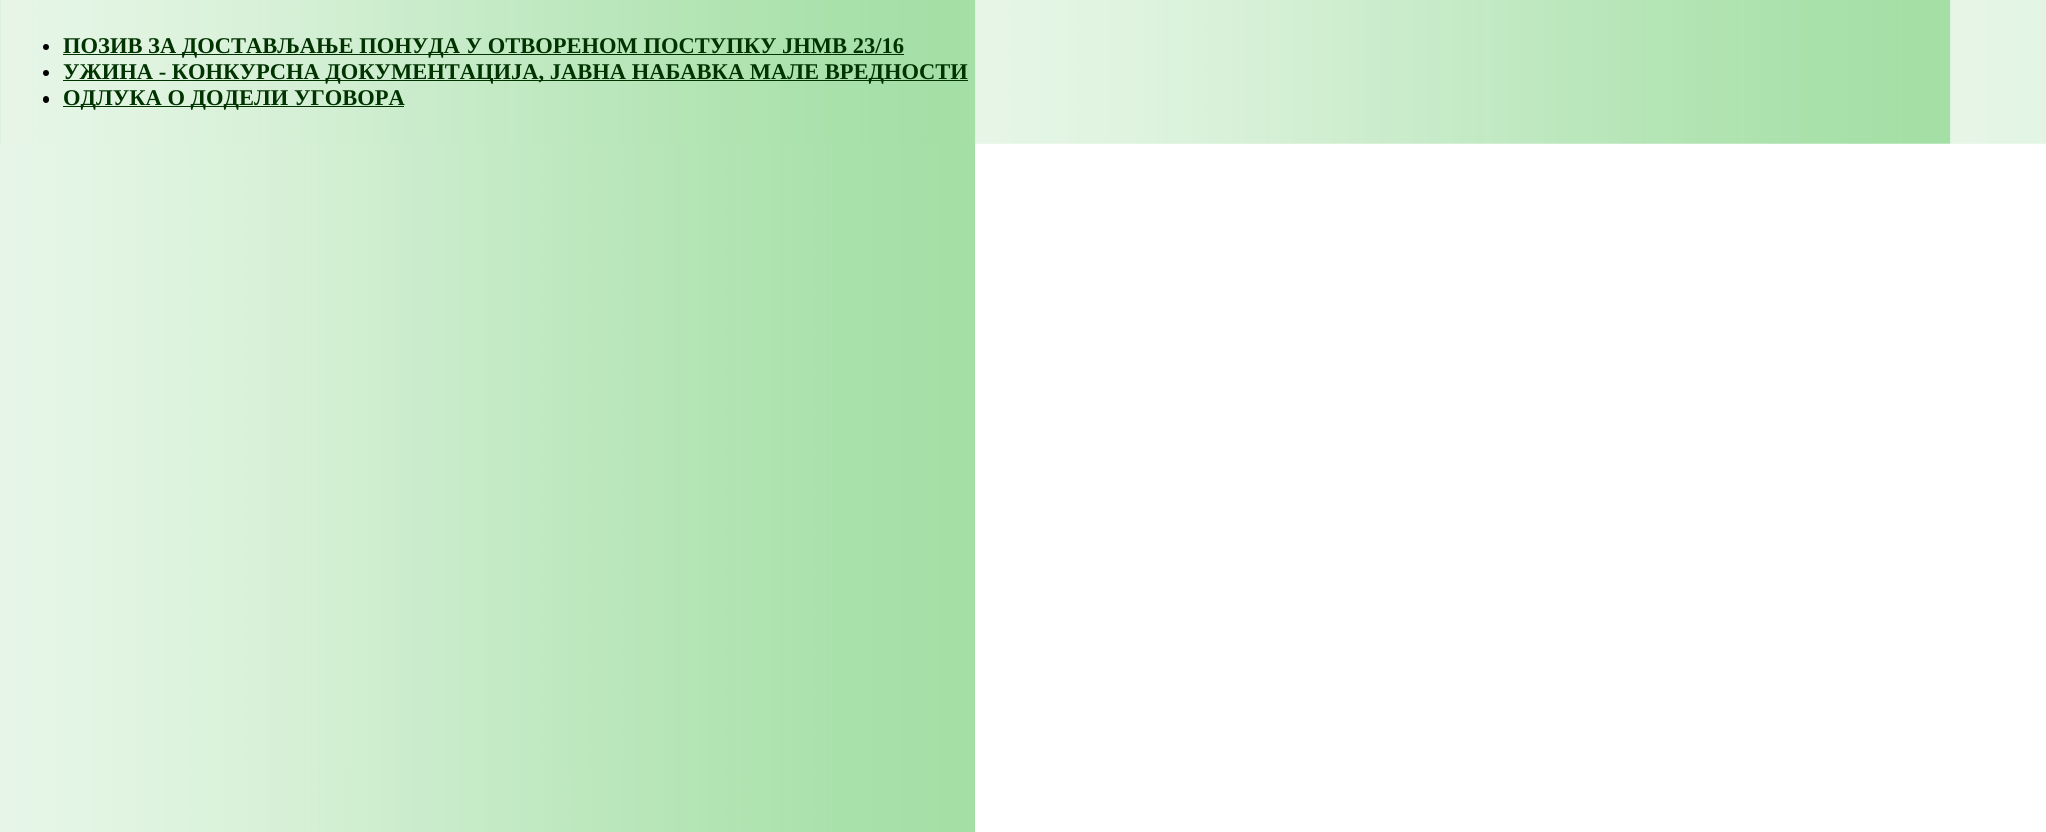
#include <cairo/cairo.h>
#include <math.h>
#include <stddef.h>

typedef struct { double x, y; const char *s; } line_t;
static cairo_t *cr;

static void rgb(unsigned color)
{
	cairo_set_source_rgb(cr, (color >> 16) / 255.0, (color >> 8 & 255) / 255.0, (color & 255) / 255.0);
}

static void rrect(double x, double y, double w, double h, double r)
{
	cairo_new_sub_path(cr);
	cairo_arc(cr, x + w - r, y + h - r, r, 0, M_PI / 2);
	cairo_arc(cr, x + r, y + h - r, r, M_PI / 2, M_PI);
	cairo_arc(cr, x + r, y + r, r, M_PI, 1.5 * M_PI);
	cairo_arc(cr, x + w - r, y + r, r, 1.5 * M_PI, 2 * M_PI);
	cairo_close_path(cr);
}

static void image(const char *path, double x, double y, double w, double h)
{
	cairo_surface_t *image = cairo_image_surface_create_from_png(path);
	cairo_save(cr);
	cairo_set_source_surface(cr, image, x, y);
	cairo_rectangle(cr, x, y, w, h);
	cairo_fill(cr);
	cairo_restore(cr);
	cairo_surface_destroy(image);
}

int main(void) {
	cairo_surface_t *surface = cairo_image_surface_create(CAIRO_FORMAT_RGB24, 2046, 832);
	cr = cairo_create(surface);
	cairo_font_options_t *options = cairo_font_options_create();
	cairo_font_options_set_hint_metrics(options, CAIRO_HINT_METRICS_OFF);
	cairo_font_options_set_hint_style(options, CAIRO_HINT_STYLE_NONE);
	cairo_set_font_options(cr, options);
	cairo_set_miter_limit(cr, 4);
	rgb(0xffffff);
	cairo_paint(cr);
	image("img/1.png", 0, 143, 975, 689);
	image("img/2.png", 0, 0, 2046, 144);
	rgb(0x000000);
	cairo_arc(cr, 46, 47, 3, 0, 2 * M_PI);
	cairo_fill(cr);
	rgb(0x003300);
	cairo_rectangle(cr, 63, 54, 841, 1);
	cairo_fill(cr);
	rgb(0x000000);
	cairo_arc(cr, 46, 73, 3, 0, 2 * M_PI);
	cairo_fill(cr);
	rgb(0x003300);
	cairo_rectangle(cr, 63, 80, 905, 1);
	cairo_fill(cr);
	rgb(0x000000);
	rrect(43, 96, 6, 7, 3);
	cairo_fill(cr);
	rgb(0x003300);
	cairo_rectangle(cr, 63, 106, 341, 1);
	cairo_fill(cr);
	cairo_select_font_face(cr, "Liberation Serif", CAIRO_FONT_SLANT_NORMAL, CAIRO_FONT_WEIGHT_BOLD);
	cairo_set_font_size(cr, 22.5);
	{
		static const line_t items[] = {
			{63, 53, "ПОЗИВ ЗА ДОСТАВЉАЊЕ ПОНУДА У ОТВОРЕНОМ ПОСТУПКУ ЈНМВ 23/16"},
			{63, 79, "УЖИНА - КОНКУРСНА ДОКУМЕНТАЦИЈА, ЈАВНА НАБАВКА МАЛЕ ВРЕДНОСТИ"},
			{63, 105, "ОДЛУКА О ДОДЕЛИ УГОВОРА"},
		};
		for (size_t i = 0; i < sizeof items / sizeof *items; i++) {
			cairo_move_to(cr, items[i].x, items[i].y);
			cairo_show_text(cr, items[i].s);
		}
	}
	cairo_surface_write_to_png(surface, "page.png");
	cairo_font_options_destroy(options);
	cairo_destroy(cr);
	cairo_surface_destroy(surface);
	return 0;
}
